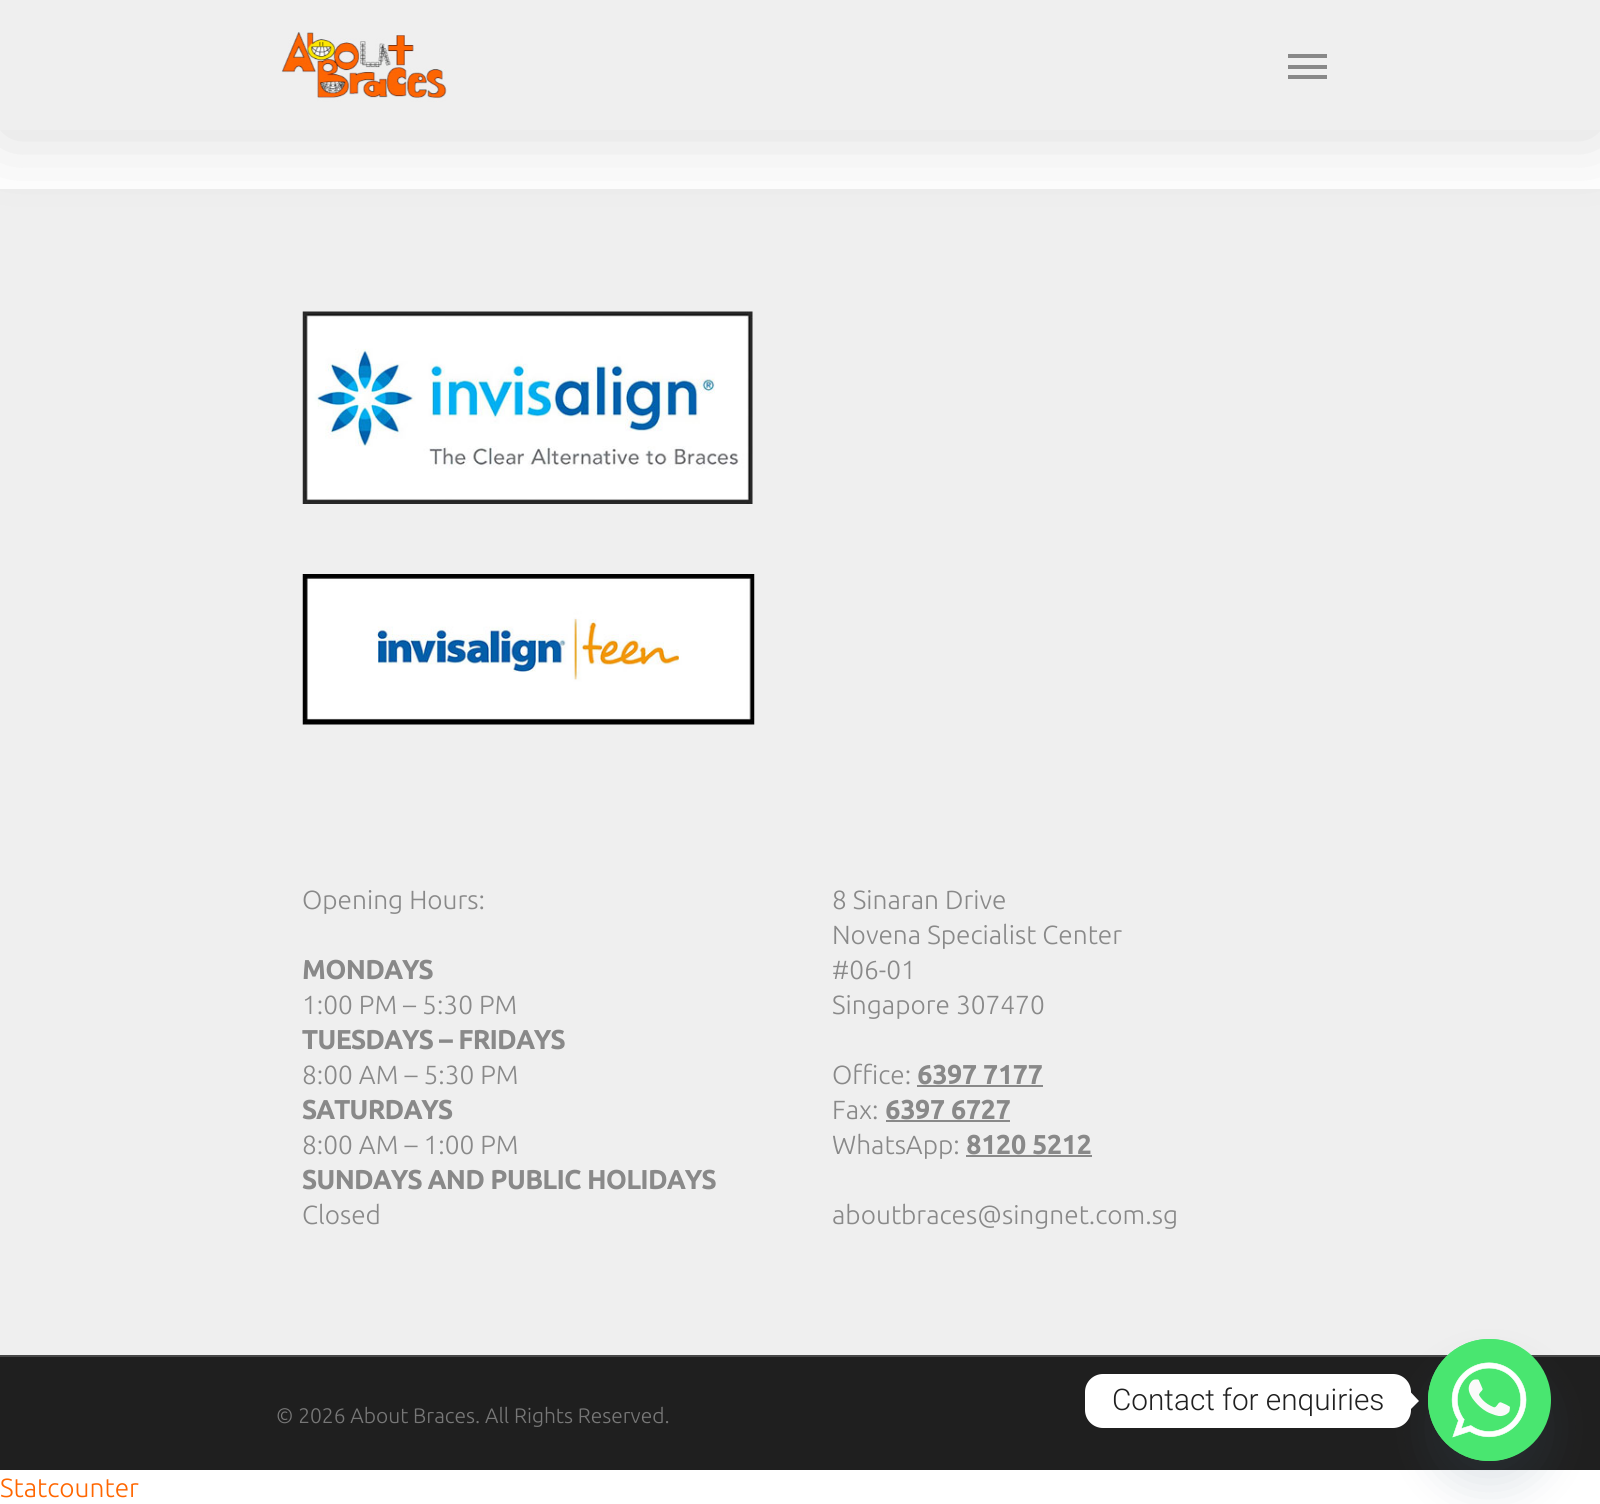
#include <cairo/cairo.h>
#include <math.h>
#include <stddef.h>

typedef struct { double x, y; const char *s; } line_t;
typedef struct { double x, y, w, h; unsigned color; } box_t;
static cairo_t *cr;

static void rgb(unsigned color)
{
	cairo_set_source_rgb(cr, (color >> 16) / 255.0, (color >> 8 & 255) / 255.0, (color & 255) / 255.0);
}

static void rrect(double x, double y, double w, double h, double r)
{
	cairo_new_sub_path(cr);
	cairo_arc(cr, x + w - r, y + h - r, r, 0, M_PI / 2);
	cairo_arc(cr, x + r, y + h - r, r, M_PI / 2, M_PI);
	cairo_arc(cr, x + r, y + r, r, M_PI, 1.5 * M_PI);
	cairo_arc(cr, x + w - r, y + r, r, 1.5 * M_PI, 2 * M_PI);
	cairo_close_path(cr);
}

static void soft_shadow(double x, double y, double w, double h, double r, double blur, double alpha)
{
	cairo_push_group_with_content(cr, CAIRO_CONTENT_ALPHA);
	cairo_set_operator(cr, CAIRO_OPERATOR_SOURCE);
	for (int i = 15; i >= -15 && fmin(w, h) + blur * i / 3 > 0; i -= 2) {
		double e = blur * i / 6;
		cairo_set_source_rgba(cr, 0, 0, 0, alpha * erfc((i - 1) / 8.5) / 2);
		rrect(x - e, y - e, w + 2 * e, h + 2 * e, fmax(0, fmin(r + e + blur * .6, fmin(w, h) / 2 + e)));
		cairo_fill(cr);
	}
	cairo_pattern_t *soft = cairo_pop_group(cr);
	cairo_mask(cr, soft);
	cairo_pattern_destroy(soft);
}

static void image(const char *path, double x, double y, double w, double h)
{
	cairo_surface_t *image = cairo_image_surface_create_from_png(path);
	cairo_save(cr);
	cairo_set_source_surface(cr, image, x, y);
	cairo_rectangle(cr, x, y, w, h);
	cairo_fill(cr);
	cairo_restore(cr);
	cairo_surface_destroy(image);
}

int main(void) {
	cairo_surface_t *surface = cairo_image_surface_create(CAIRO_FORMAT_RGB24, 1600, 1504);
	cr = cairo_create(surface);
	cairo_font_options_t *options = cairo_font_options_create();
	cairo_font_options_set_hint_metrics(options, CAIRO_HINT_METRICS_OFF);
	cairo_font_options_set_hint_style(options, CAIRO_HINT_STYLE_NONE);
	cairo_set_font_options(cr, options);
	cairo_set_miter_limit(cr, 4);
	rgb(0xffffff);
	cairo_paint(cr);
	rgb(0xefefef);
	cairo_rectangle(cr, 0, 189, 1600, 1166);
	cairo_fill(cr);
	rgb(0x000000);
	soft_shadow(0, 5, 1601, 130, 0, 39.5, 0.15);
	rgb(0xefefef);
	cairo_rectangle(cr, 0, 0, 1600, 130);
	cairo_fill(cr);
	image("img/1.png", 281, 32, 166, 70);
	{
		static const box_t items[] = {
			{1288, 54, 39, 4, 0x888888},
			{1288, 75, 39, 4, 0x888888},
			{1288, 65, 39, 4, 0x888888},
		};
		for (size_t i = 0; i < sizeof items / sizeof *items; i++) {
			rgb(items[i].color);
			cairo_rectangle(cr, items[i].x, items[i].y, items[i].w, items[i].h);
			cairo_fill(cr);
		}
	}
	image("img/2.png", 302, 311, 451, 193);
	image("img/3.png", 302, 574, 453, 151);
	{
		static const box_t items[] = {
			{917, 1085, 126, 2, 0x898989},
			{886, 1120, 124, 2, 0x898989},
			{966, 1155, 126, 2, 0x898989},
			{0, 1357, 1600, 113, 0x1f1f1f},
			{0, 1355, 1600, 2, 0x474747},
		};
		for (size_t i = 0; i < sizeof items / sizeof *items; i++) {
			rgb(items[i].color);
			cairo_rectangle(cr, items[i].x, items[i].y, items[i].w, items[i].h);
			cairo_fill(cr);
		}
	}
	rgb(0x49687e);
	soft_shadow(1428, 1367, 123, 122, 61, 21, 0.16);
	rgb(0xffffff);
	rrect(1085, 1374, 326, 54, 18);
	cairo_fill(cr);
	cairo_new_path(cr);
	cairo_move_to(cr, 1410.5, 1409.5);
	cairo_line_to(cr, 1410.5, 1392);
	cairo_line_to(cr, 1419, 1401);
	cairo_close_path(cr);
	cairo_fill(cr);
	rgb(0x49e670);
	rrect(1428, 1339, 123, 122, 61);
	cairo_fill(cr);
	image("img/4.png", 1428, 1339, 100, 122);
	cairo_select_font_face(cr, "Ubuntu Light", CAIRO_FONT_SLANT_NORMAL, CAIRO_FONT_WEIGHT_NORMAL);
	cairo_set_font_size(cr, 26.25);
	rgb(0x898989);
	cairo_move_to(cr, 302, 909);
	cairo_show_text(cr, "Opening Hours:");
	cairo_select_font_face(cr, "Ubuntu", CAIRO_FONT_SLANT_NORMAL, CAIRO_FONT_WEIGHT_BOLD);
	cairo_move_to(cr, 302, 979);
	cairo_show_text(cr, "MONDAYS");
	cairo_select_font_face(cr, "Ubuntu Light", CAIRO_FONT_SLANT_NORMAL, CAIRO_FONT_WEIGHT_NORMAL);
	cairo_move_to(cr, 302, 1014);
	cairo_show_text(cr, "1:00 PM – 5:30 PM");
	cairo_select_font_face(cr, "Ubuntu", CAIRO_FONT_SLANT_NORMAL, CAIRO_FONT_WEIGHT_BOLD);
	cairo_move_to(cr, 302, 1049);
	cairo_show_text(cr, "TUESDAYS – FRIDAYS");
	cairo_select_font_face(cr, "Ubuntu Light", CAIRO_FONT_SLANT_NORMAL, CAIRO_FONT_WEIGHT_NORMAL);
	cairo_move_to(cr, 302, 1084);
	cairo_show_text(cr, "8:00 AM – 5:30 PM");
	cairo_select_font_face(cr, "Ubuntu", CAIRO_FONT_SLANT_NORMAL, CAIRO_FONT_WEIGHT_BOLD);
	cairo_move_to(cr, 302, 1119);
	cairo_show_text(cr, "SATURDAYS");
	cairo_select_font_face(cr, "Ubuntu Light", CAIRO_FONT_SLANT_NORMAL, CAIRO_FONT_WEIGHT_NORMAL);
	cairo_move_to(cr, 302, 1154);
	cairo_show_text(cr, "8:00 AM – 1:00 PM");
	cairo_select_font_face(cr, "Ubuntu", CAIRO_FONT_SLANT_NORMAL, CAIRO_FONT_WEIGHT_BOLD);
	cairo_move_to(cr, 302, 1189);
	cairo_show_text(cr, "SUNDAYS AND PUBLIC HOLIDAYS");
	cairo_select_font_face(cr, "Ubuntu Light", CAIRO_FONT_SLANT_NORMAL, CAIRO_FONT_WEIGHT_NORMAL);
	{
		static const line_t items[] = {
			{302, 1224, "Closed"},
			{832, 909, "8 Sinaran Drive"},
			{832, 944, "Novena Specialist Center"},
			{832, 979, "#06-01"},
			{832, 1014, "Singapore 307470"},
			{832, 1084, "Office:"},
		};
		for (size_t i = 0; i < sizeof items / sizeof *items; i++) {
			cairo_move_to(cr, items[i].x, items[i].y);
			cairo_show_text(cr, items[i].s);
		}
	}
	cairo_select_font_face(cr, "Ubuntu", CAIRO_FONT_SLANT_NORMAL, CAIRO_FONT_WEIGHT_BOLD);
	cairo_move_to(cr, 917, 1084);
	cairo_show_text(cr, "6397 7177");
	cairo_select_font_face(cr, "Ubuntu Light", CAIRO_FONT_SLANT_NORMAL, CAIRO_FONT_WEIGHT_NORMAL);
	cairo_move_to(cr, 832, 1119);
	cairo_show_text(cr, "Fax:");
	cairo_select_font_face(cr, "Ubuntu", CAIRO_FONT_SLANT_NORMAL, CAIRO_FONT_WEIGHT_BOLD);
	cairo_move_to(cr, 885, 1119);
	cairo_show_text(cr, "6397 6727");
	cairo_select_font_face(cr, "Ubuntu Light", CAIRO_FONT_SLANT_NORMAL, CAIRO_FONT_WEIGHT_NORMAL);
	cairo_move_to(cr, 832, 1154);
	cairo_show_text(cr, "WhatsApp:");
	cairo_select_font_face(cr, "Ubuntu", CAIRO_FONT_SLANT_NORMAL, CAIRO_FONT_WEIGHT_BOLD);
	cairo_move_to(cr, 966, 1154);
	cairo_show_text(cr, "8120 5212");
	cairo_select_font_face(cr, "Ubuntu Light", CAIRO_FONT_SLANT_NORMAL, CAIRO_FONT_WEIGHT_NORMAL);
	cairo_move_to(cr, 832, 1224);
	cairo_show_text(cr, "aboutbraces@singnet.com.sg");
	cairo_set_font_size(cr, 21);
	rgb(0x777777);
	cairo_move_to(cr, 276, 1423);
	cairo_show_text(cr, "© 2026 About Braces. All Rights Reserved.");
	cairo_select_font_face(cr, "Roboto Light", CAIRO_FONT_SLANT_NORMAL, CAIRO_FONT_WEIGHT_NORMAL);
	cairo_set_font_size(cr, 29.75);
	rgb(0x202020);
	cairo_move_to(cr, 1112, 1410);
	cairo_show_text(cr, "Contact for enquiries");
	cairo_select_font_face(cr, "Ubuntu Light", CAIRO_FONT_SLANT_NORMAL, CAIRO_FONT_WEIGHT_NORMAL);
	cairo_set_font_size(cr, 26.25);
	rgb(0xff6600);
	cairo_move_to(cr, 0, 1497);
	cairo_show_text(cr, "Statcounter");
	cairo_surface_write_to_png(surface, "page.png");
	cairo_font_options_destroy(options);
	cairo_destroy(cr);
	cairo_surface_destroy(surface);
	return 0;
}
